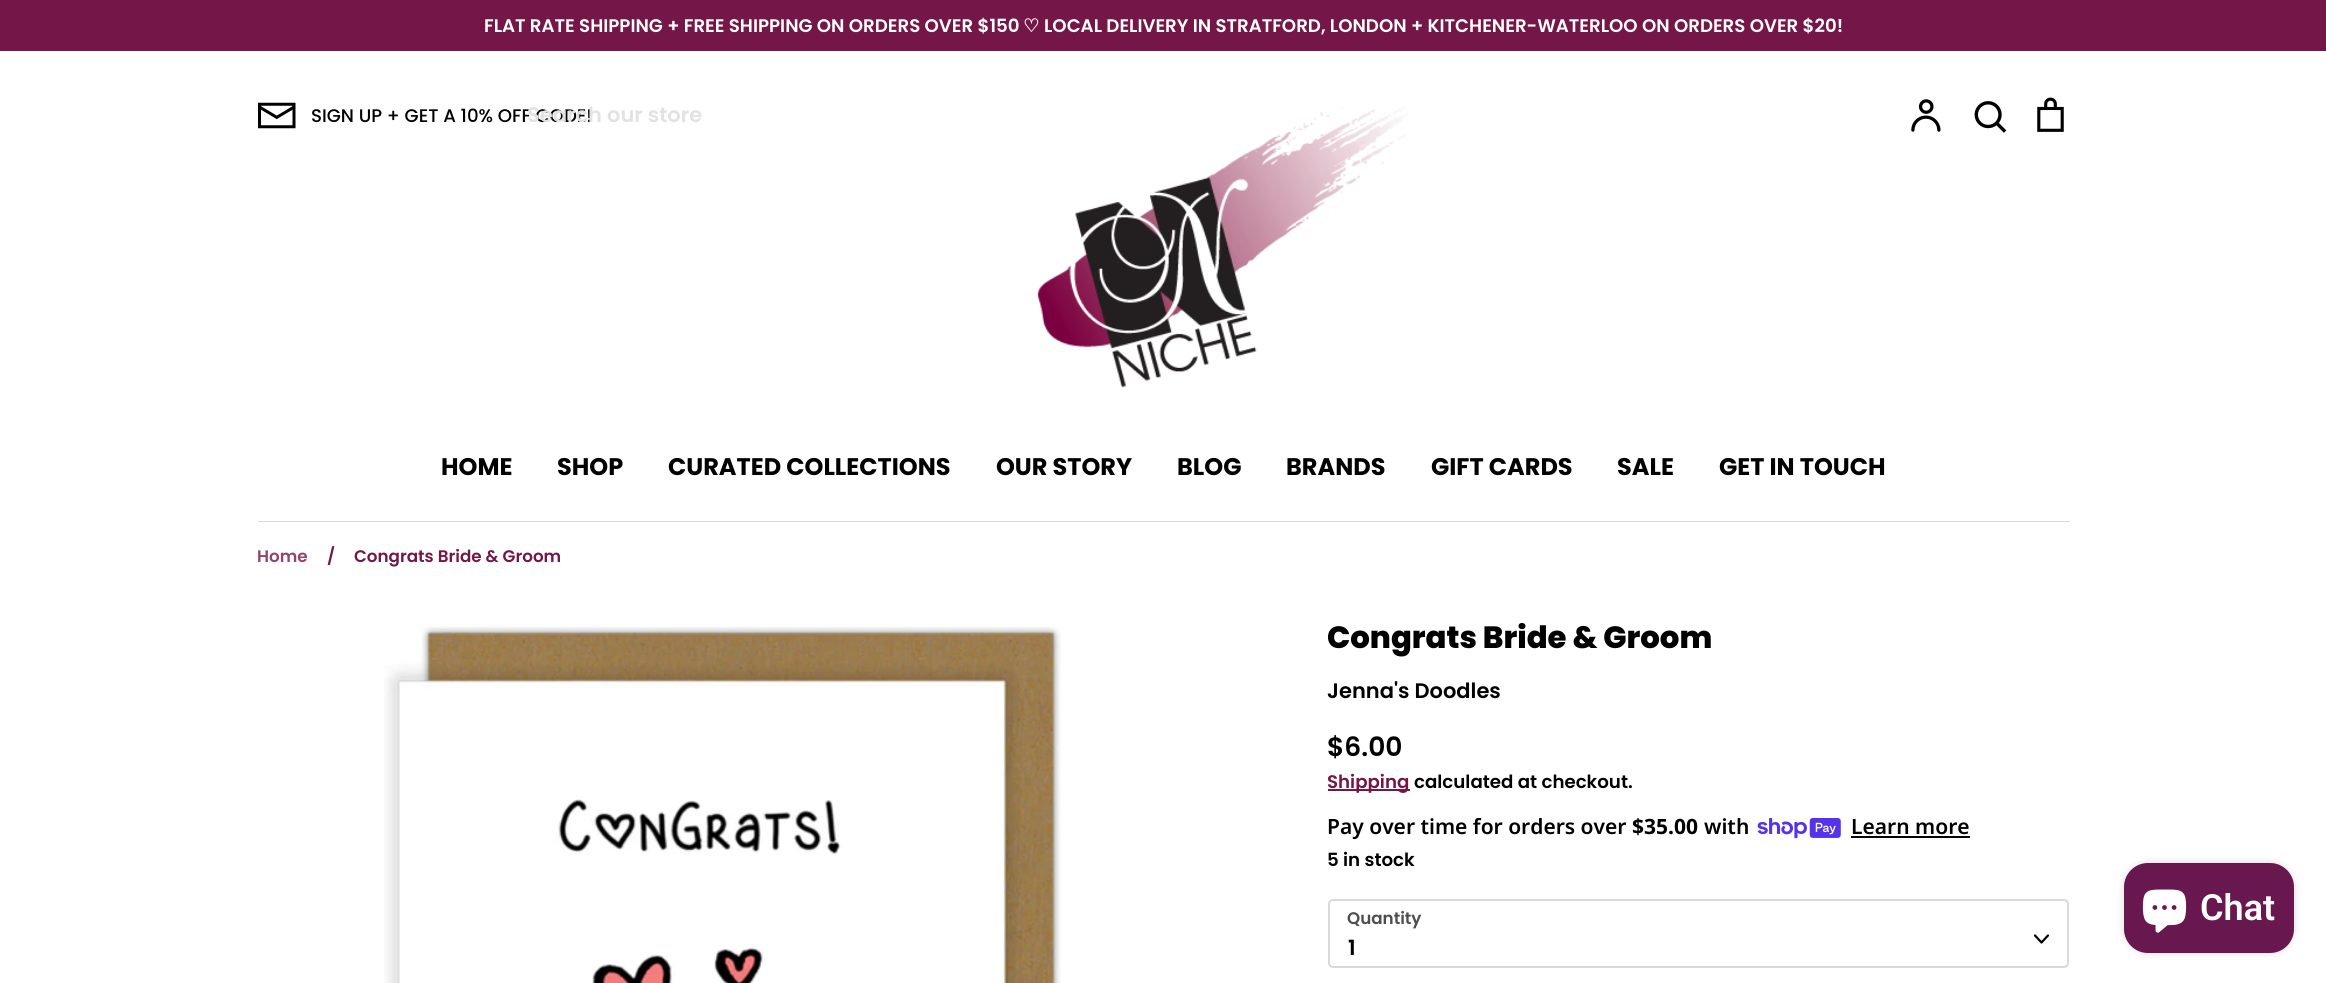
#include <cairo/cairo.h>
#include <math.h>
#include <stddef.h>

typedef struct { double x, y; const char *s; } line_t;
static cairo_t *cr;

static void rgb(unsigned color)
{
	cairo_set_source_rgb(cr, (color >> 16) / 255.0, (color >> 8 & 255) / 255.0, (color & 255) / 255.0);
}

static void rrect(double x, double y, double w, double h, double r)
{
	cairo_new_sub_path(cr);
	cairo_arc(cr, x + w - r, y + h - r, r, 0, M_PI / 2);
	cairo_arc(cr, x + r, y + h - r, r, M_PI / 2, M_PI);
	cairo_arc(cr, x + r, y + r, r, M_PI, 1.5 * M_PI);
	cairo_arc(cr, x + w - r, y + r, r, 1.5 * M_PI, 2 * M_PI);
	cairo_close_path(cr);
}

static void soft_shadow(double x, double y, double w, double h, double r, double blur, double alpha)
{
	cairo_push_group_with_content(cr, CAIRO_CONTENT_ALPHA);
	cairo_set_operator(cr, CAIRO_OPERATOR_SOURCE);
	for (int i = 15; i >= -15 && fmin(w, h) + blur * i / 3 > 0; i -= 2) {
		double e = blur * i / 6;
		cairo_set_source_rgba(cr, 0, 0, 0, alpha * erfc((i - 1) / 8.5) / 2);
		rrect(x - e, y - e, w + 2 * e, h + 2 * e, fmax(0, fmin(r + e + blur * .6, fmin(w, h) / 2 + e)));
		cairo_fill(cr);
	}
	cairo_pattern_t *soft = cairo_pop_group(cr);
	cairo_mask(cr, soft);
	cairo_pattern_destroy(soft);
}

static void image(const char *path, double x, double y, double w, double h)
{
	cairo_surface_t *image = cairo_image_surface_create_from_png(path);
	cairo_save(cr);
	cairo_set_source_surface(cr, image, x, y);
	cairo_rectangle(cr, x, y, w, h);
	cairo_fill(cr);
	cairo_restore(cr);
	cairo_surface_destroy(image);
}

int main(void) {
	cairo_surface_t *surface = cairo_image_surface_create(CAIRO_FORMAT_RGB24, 2326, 983);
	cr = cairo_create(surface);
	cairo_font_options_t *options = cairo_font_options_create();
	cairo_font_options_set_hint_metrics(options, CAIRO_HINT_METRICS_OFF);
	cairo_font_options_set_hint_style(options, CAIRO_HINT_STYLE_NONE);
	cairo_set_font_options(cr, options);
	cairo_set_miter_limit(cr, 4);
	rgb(0xffffff);
	cairo_paint(cr);
	rgb(0x741748);
	cairo_rectangle(cr, 0, 0, 2326, 51);
	cairo_fill(cr);
	image("img/1.png", 258, 102, 38, 27);
	image("img/2.png", 1974, 101, 33, 32);
	image("img/3.png", 1911, 99, 30, 33);
	image("img/4.png", 2037, 97, 27, 35);
	image("img/5.png", 1037, 106, 372, 282);
	rgb(0xd9d9d9);
	cairo_rectangle(cr, 258, 521, 1812, 1);
	cairo_fill(cr);
	image("img/6.png", 384, 626, 678, 357);
	rgb(0x741748);
	cairo_rectangle(cr, 1328, 789, 82, 2);
	cairo_fill(cr);
	image("img/7.png", 1757, 818, 84, 21);
	rgb(0x000000);
	cairo_rectangle(cr, 1851, 836, 119, 2);
	cairo_fill(cr);
	rrect(1329, 900, 739, 67, 4);
	rgb(0xd9d9d9);
	cairo_stroke(cr);
	cairo_new_path(cr);
	cairo_move_to(cr, 2035, 935.5);
	cairo_line_to(cr, 2041.5, 942.5);
	cairo_line_to(cr, 2048, 935.5);
	rgb(0x000000);
	cairo_set_line_width(cr, 2.2);
	cairo_set_line_cap(cr, CAIRO_LINE_CAP_ROUND);
	cairo_set_line_join(cr, CAIRO_LINE_JOIN_ROUND);
	cairo_stroke(cr);
	rgb(0x000000);
	soft_shadow(2124, 863, 170, 90, 24, 4, 0.15);
	rgb(0x69174f);
	rrect(2124, 863, 170, 90, 24);
	cairo_fill(cr);
	image("img/8.png", 2142, 889, 45, 44);
	cairo_select_font_face(cr, "Poppins SemiBold", CAIRO_FONT_SLANT_NORMAL, CAIRO_FONT_WEIGHT_NORMAL);
	cairo_set_font_size(cr, 18.2);
	rgb(0xffffff);
	cairo_move_to(cr, 484, 32);
	cairo_show_text(cr, "FLAT RATE SHIPPING + FREE SHIPPING ON ORDERS OVER $150");
	cairo_select_font_face(cr, "DejaVu Sans", CAIRO_FONT_SLANT_NORMAL, CAIRO_FONT_WEIGHT_BOLD);
	cairo_move_to(cr, 1023, 32);
	cairo_show_text(cr, "♡");
	cairo_select_font_face(cr, "Poppins SemiBold", CAIRO_FONT_SLANT_NORMAL, CAIRO_FONT_WEIGHT_NORMAL);
	cairo_move_to(cr, 1044, 32);
	cairo_show_text(cr, "LOCAL DELIVERY IN STRATFORD, LONDON + KITCHENER-WATERLOO ON ORDERS OVER $20!");
	cairo_select_font_face(cr, "Poppins Medium", CAIRO_FONT_SLANT_NORMAL, CAIRO_FONT_WEIGHT_NORMAL);
	rgb(0x000000);
	cairo_move_to(cr, 311, 122);
	cairo_show_text(cr, "SIGN UP + GET A 10% OFF CODE!");
	cairo_select_font_face(cr, "Poppins SemiBold", CAIRO_FONT_SLANT_NORMAL, CAIRO_FONT_WEIGHT_NORMAL);
	cairo_set_font_size(cr, 21);
	rgb(0xe2e2e2);
	cairo_move_to(cr, 527, 122);
	cairo_show_text(cr, "Search our store");
	cairo_select_font_face(cr, "Poppins", CAIRO_FONT_SLANT_NORMAL, CAIRO_FONT_WEIGHT_BOLD);
	cairo_set_font_size(cr, 24);
	rgb(0x000000);
	{
		static const line_t items[] = {
			{441, 475, "HOME"},
			{557, 475, "SHOP"},
			{668, 475, "CURATED COLLECTIONS"},
			{996, 475, "OUR STORY"},
			{1177, 475, "BLOG"},
			{1286, 475, "BRANDS"},
			{1431, 475, "GIFT CARDS"},
			{1617, 475, "SALE"},
			{1719, 475, "GET IN TOUCH"},
		};
		for (size_t i = 0; i < sizeof items / sizeof *items; i++) {
			cairo_move_to(cr, items[i].x, items[i].y);
			cairo_show_text(cr, items[i].s);
		}
	}
	cairo_select_font_face(cr, "Poppins SemiBold", CAIRO_FONT_SLANT_NORMAL, CAIRO_FONT_WEIGHT_NORMAL);
	cairo_set_font_size(cr, 16.75);
	rgb(0x90456d);
	cairo_move_to(cr, 257, 562);
	cairo_show_text(cr, "Home");
	rgb(0x741748);
	cairo_move_to(cr, 327, 562);
	cairo_show_text(cr, "/");
	cairo_move_to(cr, 354, 562);
	cairo_show_text(cr, "Congrats Bride & Groom");
	cairo_select_font_face(cr, "Poppins ExtraBold", CAIRO_FONT_SLANT_NORMAL, CAIRO_FONT_WEIGHT_NORMAL);
	cairo_set_font_size(cr, 30.75);
	rgb(0x000000);
	cairo_move_to(cr, 1327, 648);
	cairo_show_text(cr, "Congrats Bride & Groom");
	cairo_select_font_face(cr, "Poppins SemiBold", CAIRO_FONT_SLANT_NORMAL, CAIRO_FONT_WEIGHT_NORMAL);
	cairo_set_font_size(cr, 21);
	cairo_move_to(cr, 1327, 698);
	cairo_show_text(cr, "Jenna's Doodles");
	cairo_set_font_size(cr, 26.5);
	cairo_move_to(cr, 1327, 756);
	cairo_show_text(cr, "$6.00");
	cairo_set_font_size(cr, 18.2);
	rgb(0x741748);
	cairo_move_to(cr, 1327, 788);
	cairo_show_text(cr, "Shipping");
	rgb(0x000000);
	cairo_move_to(cr, 1414, 788);
	cairo_show_text(cr, "calculated at checkout.");
	cairo_select_font_face(cr, "Noto Sans SemiBold", CAIRO_FONT_SLANT_NORMAL, CAIRO_FONT_WEIGHT_NORMAL);
	cairo_set_font_size(cr, 21);
	cairo_move_to(cr, 1327, 834);
	cairo_show_text(cr, "Pay over time for orders over");
	cairo_select_font_face(cr, "Noto Sans", CAIRO_FONT_SLANT_NORMAL, CAIRO_FONT_WEIGHT_BOLD);
	cairo_move_to(cr, 1632, 834);
	cairo_show_text(cr, "$35.00");
	cairo_select_font_face(cr, "Noto Sans SemiBold", CAIRO_FONT_SLANT_NORMAL, CAIRO_FONT_WEIGHT_NORMAL);
	cairo_move_to(cr, 1704, 834);
	cairo_show_text(cr, "with");
	cairo_move_to(cr, 1851, 834);
	cairo_show_text(cr, "Learn more");
	cairo_select_font_face(cr, "Poppins SemiBold", CAIRO_FONT_SLANT_NORMAL, CAIRO_FONT_WEIGHT_NORMAL);
	cairo_set_font_size(cr, 18.2);
	cairo_move_to(cr, 1327, 866);
	cairo_show_text(cr, "5 in stock");
	cairo_set_font_size(cr, 16.75);
	rgb(0x4d4d4d);
	cairo_move_to(cr, 1347, 924);
	cairo_show_text(cr, "Quantity");
	cairo_set_font_size(cr, 21);
	rgb(0x000000);
	cairo_move_to(cr, 1348, 955);
	cairo_show_text(cr, "1");
	cairo_select_font_face(cr, "Roboto SemiBold", CAIRO_FONT_SLANT_NORMAL, CAIRO_FONT_WEIGHT_NORMAL);
	cairo_set_font_size(cr, 36);
	rgb(0xffffff);
	cairo_move_to(cr, 2200, 920);
	cairo_show_text(cr, "Chat");
	cairo_surface_write_to_png(surface, "page.png");
	cairo_font_options_destroy(options);
	cairo_destroy(cr);
	cairo_surface_destroy(surface);
	return 0;
}
